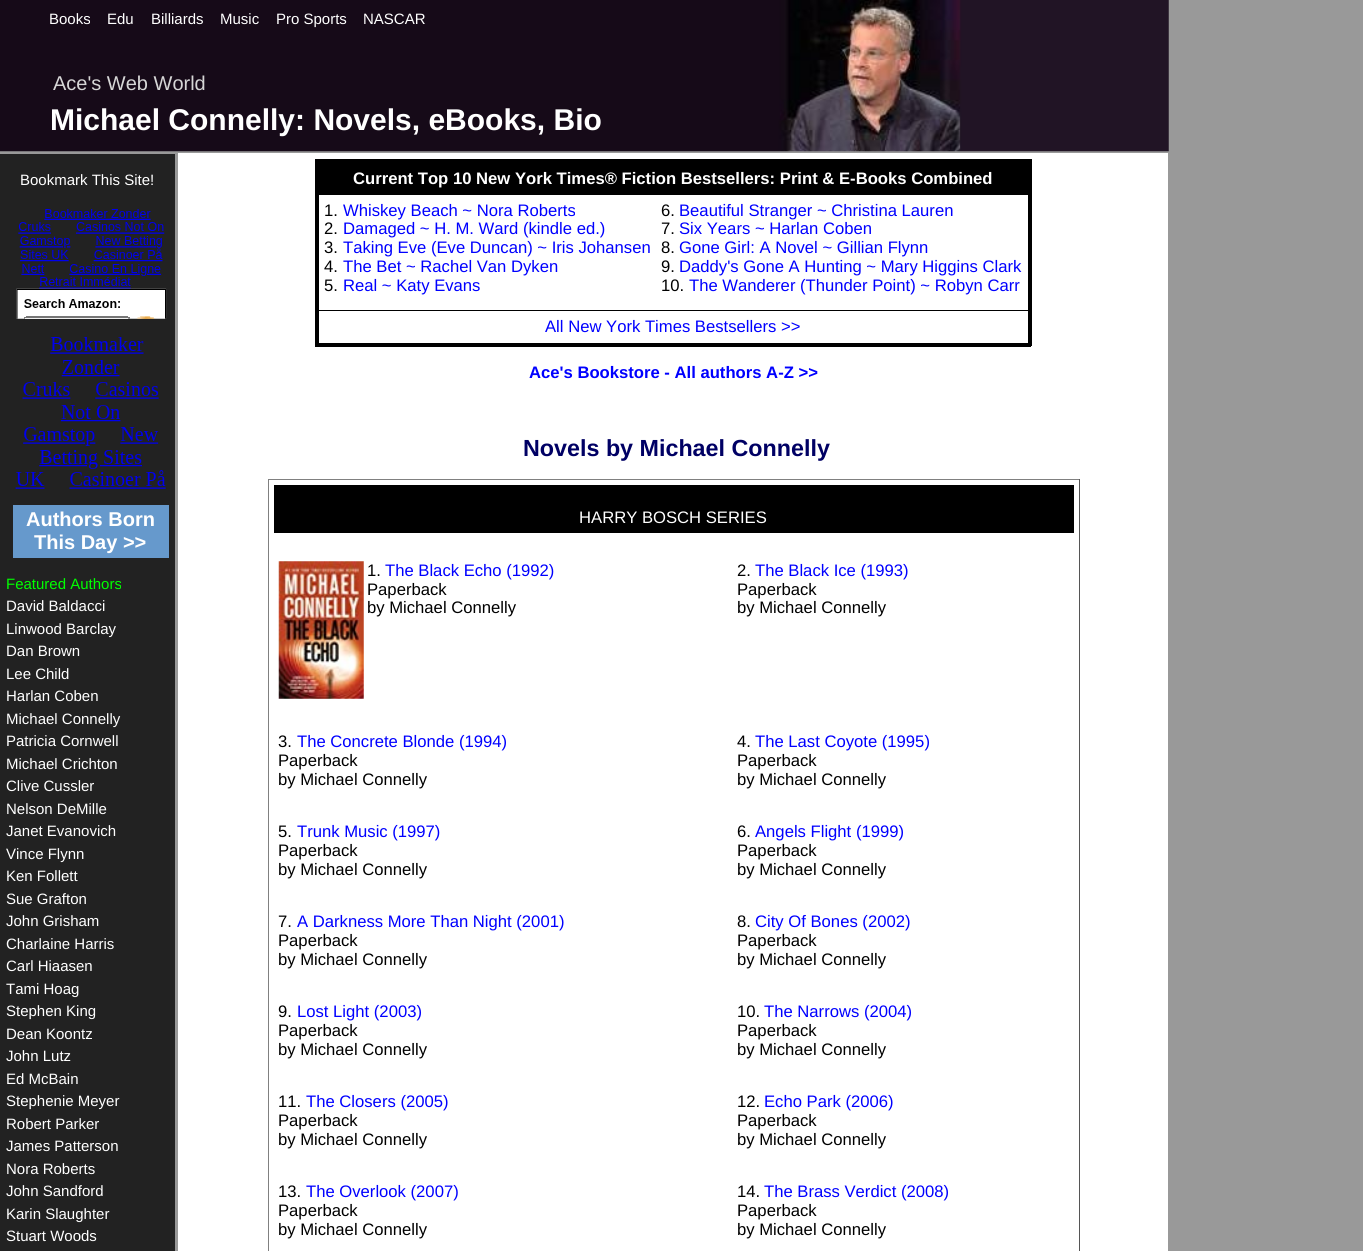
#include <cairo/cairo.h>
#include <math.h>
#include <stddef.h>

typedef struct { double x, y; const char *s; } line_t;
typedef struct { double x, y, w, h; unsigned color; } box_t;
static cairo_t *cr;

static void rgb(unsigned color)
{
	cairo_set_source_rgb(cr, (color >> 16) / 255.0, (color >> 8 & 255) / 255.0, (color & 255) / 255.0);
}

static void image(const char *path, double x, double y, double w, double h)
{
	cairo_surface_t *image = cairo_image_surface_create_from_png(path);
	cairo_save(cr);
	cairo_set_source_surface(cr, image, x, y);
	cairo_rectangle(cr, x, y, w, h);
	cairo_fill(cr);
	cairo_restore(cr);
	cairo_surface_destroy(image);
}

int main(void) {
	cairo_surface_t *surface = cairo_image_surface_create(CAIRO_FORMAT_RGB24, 1363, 1251);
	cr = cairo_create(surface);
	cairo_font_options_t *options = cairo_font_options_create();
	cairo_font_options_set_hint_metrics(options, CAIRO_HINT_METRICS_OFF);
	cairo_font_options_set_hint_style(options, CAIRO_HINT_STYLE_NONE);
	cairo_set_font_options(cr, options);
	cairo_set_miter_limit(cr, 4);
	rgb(0x999999);
	cairo_paint(cr);
	image("img/1.png", 0, 0, 1169, 152);
	rgb(0x222222);
	cairo_rectangle(cr, 0, 154, 175, 1097);
	cairo_fill(cr);
	image("img/2.png", 16, 209, 151, 110);
	image("img/3.png", 15, 337, 151, 152);
	{
		static const box_t items[] = {
			{13, 505, 156, 53, 0x6699cc},
			{178, 153, 990, 1098, 0xffffff},
			{315, 159, 716, 4, 0x000000},
			{316, 194, 714, 1, 0x000000},
			{316, 310, 714, 1, 0x000000},
			{1028, 159, 4, 187, 0x000000},
			{315, 343, 716, 4, 0x000000},
			{315, 159, 4, 187, 0x000000},
			{319, 163, 709, 31, 0x000000},
			{268, 479, 812, 1, 0x808080},
			{1079, 479, 1, 772, 0x555555},
			{268, 479, 1, 772, 0x808080},
			{274, 485, 800, 48, 0x000000},
		};
		for (size_t i = 0; i < sizeof items / sizeof *items; i++) {
			rgb(items[i].color);
			cairo_rectangle(cr, items[i].x, items[i].y, items[i].w, items[i].h);
			cairo_fill(cr);
		}
	}
	image("img/4.png", 278, 561, 86, 138);
	cairo_select_font_face(cr, "Liberation Sans", CAIRO_FONT_SLANT_NORMAL, CAIRO_FONT_WEIGHT_NORMAL);
	cairo_set_font_size(cr, 15);
	rgb(0xffffff);
	{
		static const line_t items[] = {
			{49, 24, "Books"},
			{107, 24, "Edu"},
			{151, 24, "Billiards"},
			{220, 24, "Music"},
			{276, 24, "Pro Sports"},
			{363, 24, "NASCAR"},
		};
		for (size_t i = 0; i < sizeof items / sizeof *items; i++) {
			cairo_move_to(cr, items[i].x, items[i].y);
			cairo_show_text(cr, items[i].s);
		}
	}
	cairo_set_font_size(cr, 20);
	rgb(0xd6d6d6);
	cairo_move_to(cr, 53, 90);
	cairo_show_text(cr, "Ace's Web World");
	cairo_select_font_face(cr, "Liberation Sans", CAIRO_FONT_SLANT_NORMAL, CAIRO_FONT_WEIGHT_BOLD);
	cairo_set_font_size(cr, 30);
	rgb(0xffffff);
	cairo_move_to(cr, 50, 130);
	cairo_show_text(cr, "Michael Connelly: Novels, eBooks, Bio");
	cairo_select_font_face(cr, "Liberation Sans", CAIRO_FONT_SLANT_NORMAL, CAIRO_FONT_WEIGHT_NORMAL);
	cairo_set_font_size(cr, 15);
	cairo_move_to(cr, 20, 185);
	cairo_show_text(cr, "Bookmark This Site!");
	cairo_select_font_face(cr, "Liberation Sans", CAIRO_FONT_SLANT_NORMAL, CAIRO_FONT_WEIGHT_BOLD);
	cairo_set_font_size(cr, 20);
	cairo_move_to(cr, 26, 526);
	cairo_show_text(cr, "Authors Born");
	cairo_move_to(cr, 34, 549);
	cairo_show_text(cr, "This Day >>");
	cairo_select_font_face(cr, "Liberation Sans", CAIRO_FONT_SLANT_NORMAL, CAIRO_FONT_WEIGHT_NORMAL);
	cairo_set_font_size(cr, 15);
	rgb(0x00ff00);
	cairo_move_to(cr, 6, 589);
	cairo_show_text(cr, "Featured Authors");
	rgb(0xffffff);
	{
		static const line_t items[] = {
			{6, 611, "David Baldacci"},
			{6, 634, "Linwood Barclay"},
			{6, 656, "Dan Brown"},
			{6, 679, "Lee Child"},
			{6, 701, "Harlan Coben"},
			{6, 724, "Michael Connelly"},
			{6, 746, "Patricia Cornwell"},
			{6, 769, "Michael Crichton"},
			{6, 791, "Clive Cussler"},
			{6, 814, "Nelson DeMille"},
			{6, 836, "Janet Evanovich"},
			{6, 859, "Vince Flynn"},
			{6, 881, "Ken Follett"},
			{6, 904, "Sue Grafton"},
			{6, 926, "John Grisham"},
			{6, 949, "Charlaine Harris"},
			{6, 971, "Carl Hiaasen"},
			{6, 994, "Tami Hoag"},
			{6, 1016, "Stephen King"},
			{6, 1039, "Dean Koontz"},
			{6, 1061, "John Lutz"},
			{6, 1084, "Ed McBain"},
			{6, 1106, "Stephenie Meyer"},
			{6, 1129, "Robert Parker"},
			{6, 1151, "James Patterson"},
			{6, 1174, "Nora Roberts"},
			{6, 1196, "John Sandford"},
			{6, 1219, "Karin Slaughter"},
			{6, 1241, "Stuart Woods"},
		};
		for (size_t i = 0; i < sizeof items / sizeof *items; i++) {
			cairo_move_to(cr, items[i].x, items[i].y);
			cairo_show_text(cr, items[i].s);
		}
	}
	cairo_select_font_face(cr, "Liberation Sans", CAIRO_FONT_SLANT_NORMAL, CAIRO_FONT_WEIGHT_BOLD);
	cairo_set_font_size(cr, 16.65);
	cairo_move_to(cr, 353, 184);
	cairo_show_text(cr, "Current Top 10 New York Times® Fiction Bestsellers: Print & E-Books Combined");
	cairo_select_font_face(cr, "Liberation Sans", CAIRO_FONT_SLANT_NORMAL, CAIRO_FONT_WEIGHT_NORMAL);
	rgb(0x000000);
	cairo_move_to(cr, 324, 216);
	cairo_show_text(cr, "1.");
	rgb(0x0000ff);
	cairo_move_to(cr, 343, 216);
	cairo_show_text(cr, "Whiskey Beach ~ Nora Roberts");
	rgb(0x000000);
	cairo_move_to(cr, 324, 234);
	cairo_show_text(cr, "2.");
	rgb(0x0000ff);
	cairo_move_to(cr, 343, 234);
	cairo_show_text(cr, "Damaged ~ H. M. Ward (kindle ed.)");
	rgb(0x000000);
	cairo_move_to(cr, 324, 253);
	cairo_show_text(cr, "3.");
	rgb(0x0000ff);
	cairo_move_to(cr, 343, 253);
	cairo_show_text(cr, "Taking Eve (Eve Duncan) ~ Iris Johansen");
	rgb(0x000000);
	cairo_move_to(cr, 324, 272);
	cairo_show_text(cr, "4.");
	rgb(0x0000ff);
	cairo_move_to(cr, 343, 272);
	cairo_show_text(cr, "The Bet ~ Rachel Van Dyken");
	rgb(0x000000);
	cairo_move_to(cr, 324, 291);
	cairo_show_text(cr, "5.");
	rgb(0x0000ff);
	cairo_move_to(cr, 343, 291);
	cairo_show_text(cr, "Real ~ Katy Evans");
	rgb(0x000000);
	cairo_move_to(cr, 661, 216);
	cairo_show_text(cr, "6.");
	rgb(0x0000ff);
	cairo_move_to(cr, 679, 216);
	cairo_show_text(cr, "Beautiful Stranger ~ Christina Lauren");
	rgb(0x000000);
	cairo_move_to(cr, 661, 234);
	cairo_show_text(cr, "7.");
	rgb(0x0000ff);
	cairo_move_to(cr, 679, 234);
	cairo_show_text(cr, "Six Years ~ Harlan Coben");
	rgb(0x000000);
	cairo_move_to(cr, 661, 253);
	cairo_show_text(cr, "8.");
	rgb(0x0000ff);
	cairo_move_to(cr, 679, 253);
	cairo_show_text(cr, "Gone Girl: A Novel ~ Gillian Flynn");
	rgb(0x000000);
	cairo_move_to(cr, 661, 272);
	cairo_show_text(cr, "9.");
	rgb(0x0000ff);
	cairo_move_to(cr, 679, 272);
	cairo_show_text(cr, "Daddy's Gone A Hunting ~ Mary Higgins Clark");
	rgb(0x000000);
	cairo_move_to(cr, 661, 291);
	cairo_show_text(cr, "10.");
	rgb(0x0000ff);
	cairo_move_to(cr, 689, 291);
	cairo_show_text(cr, "The Wanderer (Thunder Point) ~ Robyn Carr");
	cairo_move_to(cr, 545, 332);
	cairo_show_text(cr, "All New York Times Bestsellers >>");
	cairo_select_font_face(cr, "Liberation Sans", CAIRO_FONT_SLANT_NORMAL, CAIRO_FONT_WEIGHT_BOLD);
	cairo_move_to(cr, 529, 378);
	cairo_show_text(cr, "Ace's Bookstore - All authors A-Z >>");
	cairo_set_font_size(cr, 23.3);
	rgb(0x000064);
	cairo_move_to(cr, 523, 456);
	cairo_show_text(cr, "Novels by Michael Connelly");
	cairo_select_font_face(cr, "Liberation Sans", CAIRO_FONT_SLANT_NORMAL, CAIRO_FONT_WEIGHT_NORMAL);
	cairo_set_font_size(cr, 16.65);
	rgb(0xffffff);
	cairo_move_to(cr, 579, 523);
	cairo_show_text(cr, "HARRY BOSCH SERIES");
	rgb(0x000000);
	cairo_move_to(cr, 367, 576);
	cairo_show_text(cr, "1.");
	rgb(0x0000ff);
	cairo_move_to(cr, 385, 576);
	cairo_show_text(cr, "The Black Echo (1992)");
	rgb(0x000000);
	{
		static const line_t items[] = {
			{367, 595, "Paperback"},
			{367, 613, "by Michael Connelly"},
			{737, 576, "2."},
		};
		for (size_t i = 0; i < sizeof items / sizeof *items; i++) {
			cairo_move_to(cr, items[i].x, items[i].y);
			cairo_show_text(cr, items[i].s);
		}
	}
	rgb(0x0000ff);
	cairo_move_to(cr, 755, 576);
	cairo_show_text(cr, "The Black Ice (1993)");
	rgb(0x000000);
	{
		static const line_t items[] = {
			{737, 595, "Paperback"},
			{737, 613, "by Michael Connelly"},
			{278, 747, "3."},
		};
		for (size_t i = 0; i < sizeof items / sizeof *items; i++) {
			cairo_move_to(cr, items[i].x, items[i].y);
			cairo_show_text(cr, items[i].s);
		}
	}
	rgb(0x0000ff);
	cairo_move_to(cr, 297, 747);
	cairo_show_text(cr, "The Concrete Blonde (1994)");
	rgb(0x000000);
	{
		static const line_t items[] = {
			{278, 766, "Paperback"},
			{278, 785, "by Michael Connelly"},
			{737, 747, "4."},
		};
		for (size_t i = 0; i < sizeof items / sizeof *items; i++) {
			cairo_move_to(cr, items[i].x, items[i].y);
			cairo_show_text(cr, items[i].s);
		}
	}
	rgb(0x0000ff);
	cairo_move_to(cr, 755, 747);
	cairo_show_text(cr, "The Last Coyote (1995)");
	rgb(0x000000);
	{
		static const line_t items[] = {
			{737, 766, "Paperback"},
			{737, 785, "by Michael Connelly"},
			{278, 837, "5."},
		};
		for (size_t i = 0; i < sizeof items / sizeof *items; i++) {
			cairo_move_to(cr, items[i].x, items[i].y);
			cairo_show_text(cr, items[i].s);
		}
	}
	rgb(0x0000ff);
	cairo_move_to(cr, 297, 837);
	cairo_show_text(cr, "Trunk Music (1997)");
	rgb(0x000000);
	{
		static const line_t items[] = {
			{278, 856, "Paperback"},
			{278, 875, "by Michael Connelly"},
			{737, 837, "6."},
		};
		for (size_t i = 0; i < sizeof items / sizeof *items; i++) {
			cairo_move_to(cr, items[i].x, items[i].y);
			cairo_show_text(cr, items[i].s);
		}
	}
	rgb(0x0000ff);
	cairo_move_to(cr, 755, 837);
	cairo_show_text(cr, "Angels Flight (1999)");
	rgb(0x000000);
	{
		static const line_t items[] = {
			{737, 856, "Paperback"},
			{737, 875, "by Michael Connelly"},
			{278, 927, "7."},
		};
		for (size_t i = 0; i < sizeof items / sizeof *items; i++) {
			cairo_move_to(cr, items[i].x, items[i].y);
			cairo_show_text(cr, items[i].s);
		}
	}
	rgb(0x0000ff);
	cairo_move_to(cr, 297, 927);
	cairo_show_text(cr, "A Darkness More Than Night (2001)");
	rgb(0x000000);
	{
		static const line_t items[] = {
			{278, 946, "Paperback"},
			{278, 965, "by Michael Connelly"},
			{737, 927, "8."},
		};
		for (size_t i = 0; i < sizeof items / sizeof *items; i++) {
			cairo_move_to(cr, items[i].x, items[i].y);
			cairo_show_text(cr, items[i].s);
		}
	}
	rgb(0x0000ff);
	cairo_move_to(cr, 755, 927);
	cairo_show_text(cr, "City Of Bones (2002)");
	rgb(0x000000);
	{
		static const line_t items[] = {
			{737, 946, "Paperback"},
			{737, 965, "by Michael Connelly"},
			{278, 1017, "9."},
		};
		for (size_t i = 0; i < sizeof items / sizeof *items; i++) {
			cairo_move_to(cr, items[i].x, items[i].y);
			cairo_show_text(cr, items[i].s);
		}
	}
	rgb(0x0000ff);
	cairo_move_to(cr, 297, 1017);
	cairo_show_text(cr, "Lost Light (2003)");
	rgb(0x000000);
	{
		static const line_t items[] = {
			{278, 1036, "Paperback"},
			{278, 1055, "by Michael Connelly"},
			{737, 1017, "10."},
		};
		for (size_t i = 0; i < sizeof items / sizeof *items; i++) {
			cairo_move_to(cr, items[i].x, items[i].y);
			cairo_show_text(cr, items[i].s);
		}
	}
	rgb(0x0000ff);
	cairo_move_to(cr, 764, 1017);
	cairo_show_text(cr, "The Narrows (2004)");
	rgb(0x000000);
	{
		static const line_t items[] = {
			{737, 1036, "Paperback"},
			{737, 1055, "by Michael Connelly"},
			{278, 1107, "11."},
		};
		for (size_t i = 0; i < sizeof items / sizeof *items; i++) {
			cairo_move_to(cr, items[i].x, items[i].y);
			cairo_show_text(cr, items[i].s);
		}
	}
	rgb(0x0000ff);
	cairo_move_to(cr, 306, 1107);
	cairo_show_text(cr, "The Closers (2005)");
	rgb(0x000000);
	{
		static const line_t items[] = {
			{278, 1126, "Paperback"},
			{278, 1145, "by Michael Connelly"},
			{737, 1107, "12."},
		};
		for (size_t i = 0; i < sizeof items / sizeof *items; i++) {
			cairo_move_to(cr, items[i].x, items[i].y);
			cairo_show_text(cr, items[i].s);
		}
	}
	rgb(0x0000ff);
	cairo_move_to(cr, 764, 1107);
	cairo_show_text(cr, "Echo Park (2006)");
	rgb(0x000000);
	{
		static const line_t items[] = {
			{737, 1126, "Paperback"},
			{737, 1145, "by Michael Connelly"},
			{278, 1197, "13."},
		};
		for (size_t i = 0; i < sizeof items / sizeof *items; i++) {
			cairo_move_to(cr, items[i].x, items[i].y);
			cairo_show_text(cr, items[i].s);
		}
	}
	rgb(0x0000ff);
	cairo_move_to(cr, 306, 1197);
	cairo_show_text(cr, "The Overlook (2007)");
	rgb(0x000000);
	{
		static const line_t items[] = {
			{278, 1216, "Paperback"},
			{278, 1235, "by Michael Connelly"},
			{737, 1197, "14."},
		};
		for (size_t i = 0; i < sizeof items / sizeof *items; i++) {
			cairo_move_to(cr, items[i].x, items[i].y);
			cairo_show_text(cr, items[i].s);
		}
	}
	rgb(0x0000ff);
	cairo_move_to(cr, 764, 1197);
	cairo_show_text(cr, "The Brass Verdict (2008)");
	rgb(0x000000);
	cairo_move_to(cr, 737, 1216);
	cairo_show_text(cr, "Paperback");
	cairo_move_to(cr, 737, 1235);
	cairo_show_text(cr, "by Michael Connelly");
	cairo_surface_write_to_png(surface, "page.png");
	cairo_font_options_destroy(options);
	cairo_destroy(cr);
	cairo_surface_destroy(surface);
	return 0;
}
